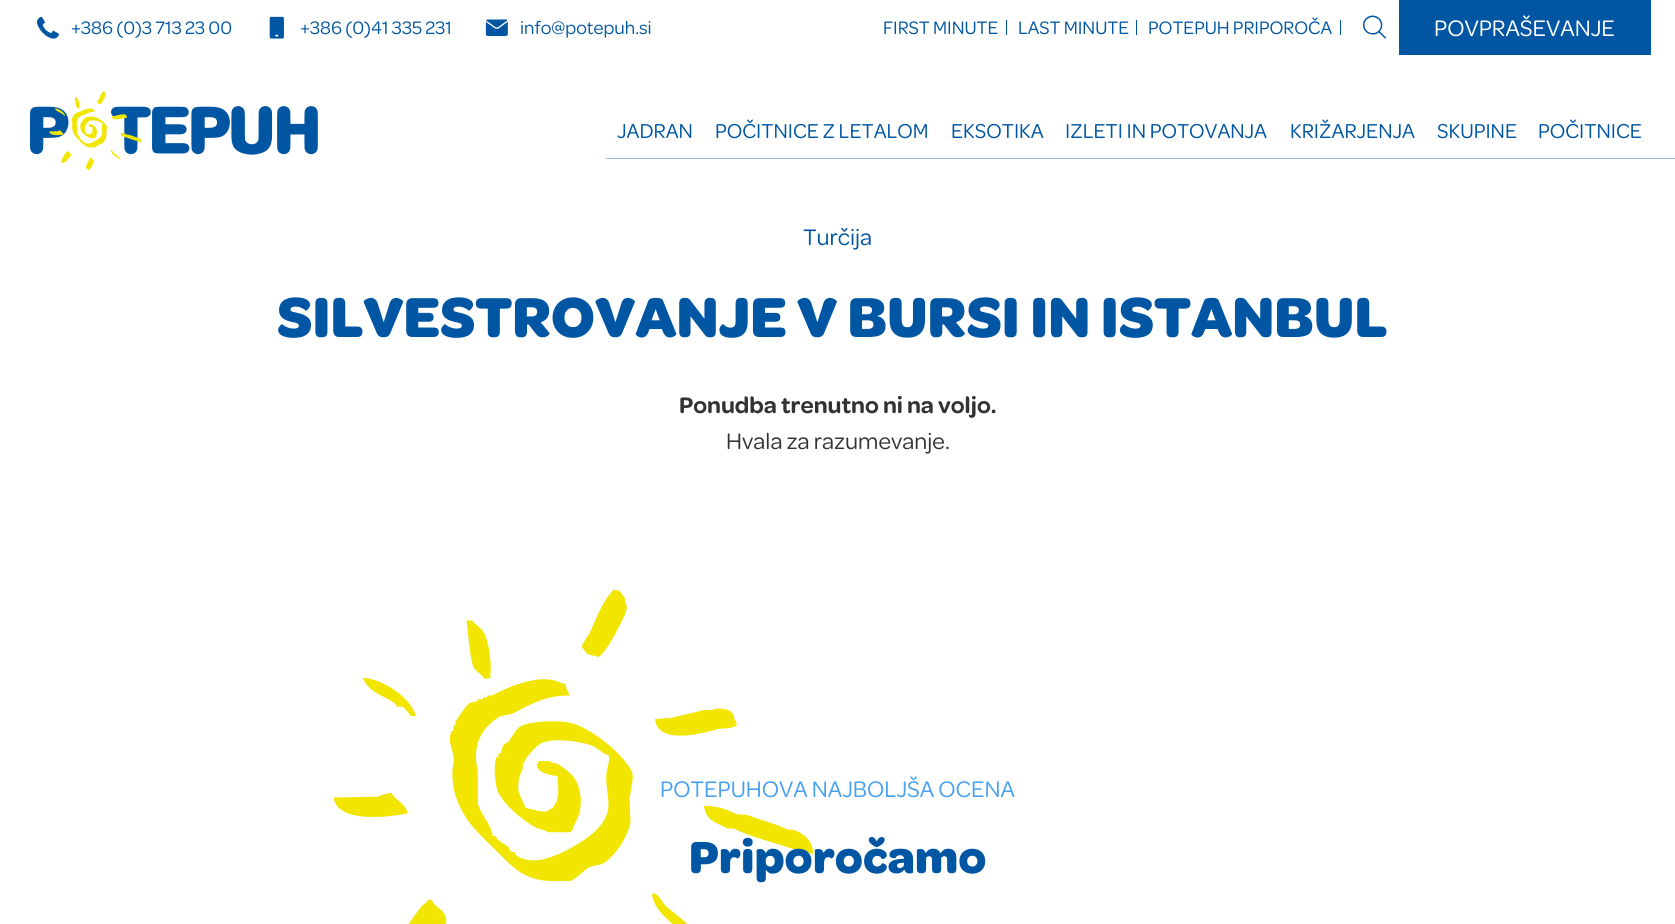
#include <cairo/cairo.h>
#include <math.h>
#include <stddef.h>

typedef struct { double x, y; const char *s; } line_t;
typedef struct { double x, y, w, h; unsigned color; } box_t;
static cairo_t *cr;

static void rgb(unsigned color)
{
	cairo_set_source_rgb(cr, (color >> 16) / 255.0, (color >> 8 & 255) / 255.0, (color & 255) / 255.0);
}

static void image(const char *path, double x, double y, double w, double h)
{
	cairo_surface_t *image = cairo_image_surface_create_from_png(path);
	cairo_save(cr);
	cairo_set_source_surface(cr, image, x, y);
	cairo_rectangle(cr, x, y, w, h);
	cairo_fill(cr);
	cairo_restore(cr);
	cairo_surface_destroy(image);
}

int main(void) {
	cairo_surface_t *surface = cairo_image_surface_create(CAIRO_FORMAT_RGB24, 1675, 924);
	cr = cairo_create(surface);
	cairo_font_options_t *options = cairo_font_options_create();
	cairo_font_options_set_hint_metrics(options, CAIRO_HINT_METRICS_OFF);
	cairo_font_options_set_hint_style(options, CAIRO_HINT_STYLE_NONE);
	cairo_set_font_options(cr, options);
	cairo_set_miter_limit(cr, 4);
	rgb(0xffffff);
	cairo_paint(cr);
	image("img/1.png", 37, 16, 22, 23);
	image("img/2.png", 269, 16, 15, 23);
	image("img/3.png", 485, 19, 23, 17);
	{
		static const box_t items[] = {
			{1006, 20, 1, 15, 0x0056a3},
			{1136, 20, 1, 15, 0x0056a3},
			{1340, 20, 1, 15, 0x0056a3},
		};
		for (size_t i = 0; i < sizeof items / sizeof *items; i++) {
			rgb(items[i].color);
			cairo_rectangle(cr, items[i].x, items[i].y, items[i].w, items[i].h);
			cairo_fill(cr);
		}
	}
	image("img/4.png", 1363, 15, 23, 24);
	cairo_rectangle(cr, 1399, 0, 252, 55);
	cairo_fill(cr);
	image("img/5.png", 30, 91, 288, 79);
	rgb(0x99bbda);
	cairo_rectangle(cr, 606, 158, 1069, 1);
	cairo_fill(cr);
	image("img/6.png", 334, 590, 480, 334);
	cairo_select_font_face(cr, "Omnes", CAIRO_FONT_SLANT_NORMAL, CAIRO_FONT_WEIGHT_NORMAL);
	cairo_set_font_size(cr, 19.25);
	rgb(0x0056a3);
	{
		static const line_t items[] = {
			{71, 34, "+386 (0)3 713 23 00"},
			{300, 34, "+386 (0)41 335 231"},
			{520, 34, "info@potepuh.si"},
			{883, 34, "FIRST MINUTE"},
			{1018, 34, "LAST MINUTE"},
			{1148, 34, "POTEPUH PRIPOROČA"},
		};
		for (size_t i = 0; i < sizeof items / sizeof *items; i++) {
			cairo_move_to(cr, items[i].x, items[i].y);
			cairo_show_text(cr, items[i].s);
		}
	}
	cairo_set_font_size(cr, 24);
	rgb(0xffffff);
	cairo_move_to(cr, 1434, 36);
	cairo_show_text(cr, "POVPRAŠEVANJE");
	cairo_set_font_size(cr, 21.5);
	rgb(0x0056a3);
	{
		static const line_t items[] = {
			{617, 138, "JADRAN"},
			{715, 138, "POČITNICE Z LETALOM"},
			{951, 138, "EKSOTIKA"},
			{1065, 138, "IZLETI IN POTOVANJA"},
			{1290, 138, "KRIŽARJENJA"},
			{1437, 138, "SKUPINE"},
			{1538, 138, "POČITNICE"},
		};
		for (size_t i = 0; i < sizeof items / sizeof *items; i++) {
			cairo_move_to(cr, items[i].x, items[i].y);
			cairo_show_text(cr, items[i].s);
		}
	}
	cairo_set_font_size(cr, 24);
	cairo_move_to(cr, 803, 245);
	cairo_show_text(cr, "Turčija");
	cairo_select_font_face(cr, "Omnes", CAIRO_FONT_SLANT_NORMAL, CAIRO_FONT_WEIGHT_BOLD);
	cairo_set_font_size(cr, 60);
	cairo_move_to(cr, 277, 337);
	cairo_show_text(cr, "SILVESTROVANJE V BURSI IN ISTANBUL");
	cairo_select_font_face(cr, "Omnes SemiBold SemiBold", CAIRO_FONT_SLANT_NORMAL, CAIRO_FONT_WEIGHT_NORMAL);
	cairo_set_font_size(cr, 24);
	rgb(0x333333);
	cairo_move_to(cr, 679, 413);
	cairo_show_text(cr, "Ponudba trenutno ni na voljo.");
	cairo_select_font_face(cr, "Omnes", CAIRO_FONT_SLANT_NORMAL, CAIRO_FONT_WEIGHT_NORMAL);
	cairo_move_to(cr, 726, 449);
	cairo_show_text(cr, "Hvala za razumevanje.");
	rgb(0x48a1f0);
	cairo_move_to(cr, 660, 797);
	cairo_show_text(cr, "POTEPUHOVA NAJBOLJŠA OCENA");
	cairo_select_font_face(cr, "Omnes", CAIRO_FONT_SLANT_NORMAL, CAIRO_FONT_WEIGHT_BOLD);
	cairo_set_font_size(cr, 48);
	rgb(0x0056a3);
	cairo_move_to(cr, 689, 873);
	cairo_show_text(cr, "Priporočamo");
	cairo_surface_write_to_png(surface, "page.png");
	cairo_font_options_destroy(options);
	cairo_destroy(cr);
	cairo_surface_destroy(surface);
	return 0;
}
